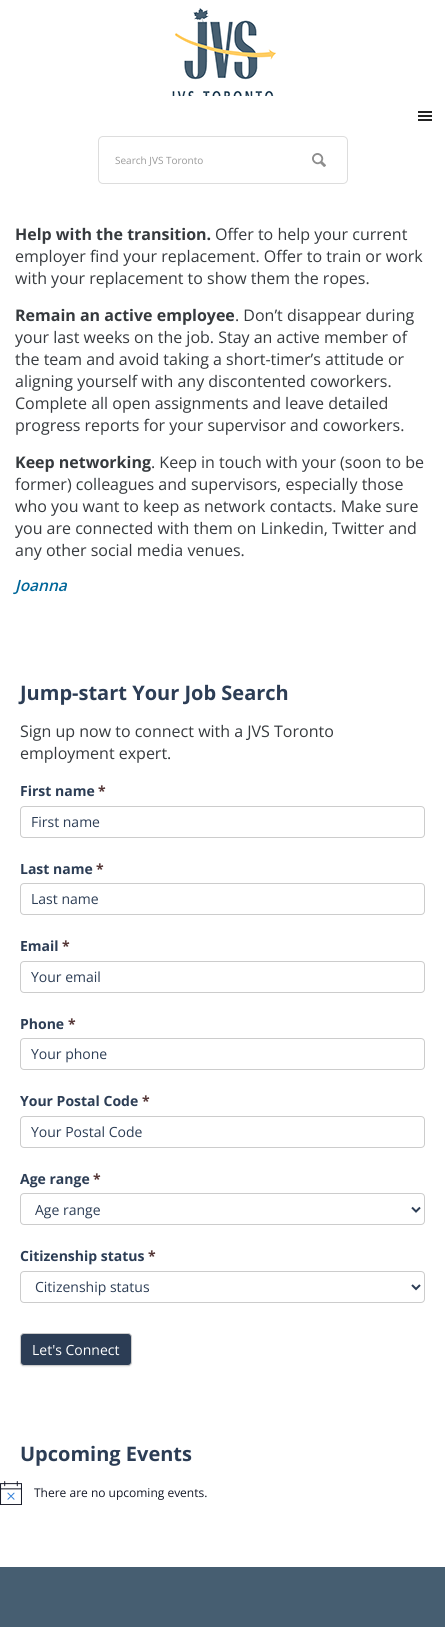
#include <cairo/cairo.h>
#include <math.h>
#include <stddef.h>

typedef struct { double x, y; const char *s; } line_t;
static cairo_t *cr;

static void rgb(unsigned color)
{
	cairo_set_source_rgb(cr, (color >> 16) / 255.0, (color >> 8 & 255) / 255.0, (color & 255) / 255.0);
}

static void rrect(double x, double y, double w, double h, double r)
{
	cairo_new_sub_path(cr);
	cairo_arc(cr, x + w - r, y + h - r, r, 0, M_PI / 2);
	cairo_arc(cr, x + r, y + h - r, r, M_PI / 2, M_PI);
	cairo_arc(cr, x + r, y + r, r, M_PI, 1.5 * M_PI);
	cairo_arc(cr, x + w - r, y + r, r, 1.5 * M_PI, 2 * M_PI);
	cairo_close_path(cr);
}

static void soft_shadow(double x, double y, double w, double h, double r, double blur, double alpha)
{
	cairo_push_group_with_content(cr, CAIRO_CONTENT_ALPHA);
	cairo_set_operator(cr, CAIRO_OPERATOR_SOURCE);
	for (int i = 15; i >= -15 && fmin(w, h) + blur * i / 3 > 0; i -= 2) {
		double e = blur * i / 6;
		cairo_set_source_rgba(cr, 0, 0, 0, alpha * erfc((i - 1) / 8.5) / 2);
		rrect(x - e, y - e, w + 2 * e, h + 2 * e, fmax(0, fmin(r + e + blur * .6, fmin(w, h) / 2 + e)));
		cairo_fill(cr);
	}
	cairo_pattern_t *soft = cairo_pop_group(cr);
	cairo_mask(cr, soft);
	cairo_pattern_destroy(soft);
}

static void image(const char *path, double x, double y, double w, double h)
{
	cairo_surface_t *image = cairo_image_surface_create_from_png(path);
	cairo_save(cr);
	cairo_set_source_surface(cr, image, x, y);
	cairo_rectangle(cr, x, y, w, h);
	cairo_fill(cr);
	cairo_restore(cr);
	cairo_surface_destroy(image);
}

int main(void) {
	cairo_surface_t *surface = cairo_image_surface_create(CAIRO_FORMAT_RGB24, 445, 1627);
	cr = cairo_create(surface);
	cairo_font_options_t *options = cairo_font_options_create();
	cairo_font_options_set_hint_metrics(options, CAIRO_HINT_METRICS_OFF);
	cairo_font_options_set_hint_style(options, CAIRO_HINT_STYLE_NONE);
	cairo_set_font_options(cr, options);
	cairo_set_miter_limit(cr, 4);
	rgb(0xffffff);
	cairo_paint(cr);
	image("img/1.png", 418, 111, 14, 10);
	image("img/2.png", 170, 8, 106, 88);
	image("img/3.png", 312, 153, 14, 14);
	rrect(98.5, 136.5, 249, 47, 4.5);
	rgb(0xdddddd);
	cairo_set_line_width(cr, 1);
	cairo_stroke(cr);
	rrect(20.5, 806.5, 404, 31, 3.5);
	rgb(0xcccccc);
	cairo_stroke(cr);
	rrect(20.5, 883.5, 404, 31, 3.5);
	cairo_stroke(cr);
	rrect(20.5, 961.5, 404, 31, 3.5);
	cairo_stroke(cr);
	rrect(20.5, 1038.5, 404, 31, 3.5);
	cairo_stroke(cr);
	rrect(20.5, 1116.5, 404, 31, 3.5);
	cairo_stroke(cr);
	rrect(20.5, 1193.5, 404, 31, 3.5);
	cairo_stroke(cr);
	cairo_new_path(cr);
	cairo_move_to(cr, 412, 1207.5);
	cairo_line_to(cr, 416, 1211.5);
	cairo_line_to(cr, 420, 1207.5);
	rgb(0x2c3d55);
	cairo_set_line_width(cr, 2);
	cairo_stroke(cr);
	rrect(20.5, 1271.5, 404, 31, 3.5);
	rgb(0xcccccc);
	cairo_set_line_width(cr, 1);
	cairo_stroke(cr);
	cairo_new_path(cr);
	cairo_move_to(cr, 412, 1285);
	cairo_line_to(cr, 416, 1289);
	cairo_line_to(cr, 420, 1285);
	rgb(0x2c3d55);
	cairo_set_line_width(cr, 2);
	cairo_stroke(cr);
	rgb(0xeeeeee);
	soft_shadow(20, 1334, 112, 33, 4, 0.5, 1);
	rgb(0x2c3d55);
	rrect(20.5, 1333.5, 111, 32, 3.5);
	cairo_fill_preserve(cr);
	rgb(0xcccccc);
	cairo_set_line_width(cr, 1);
	cairo_stroke(cr);
	image("img/4.png", 0, 1481, 22, 24);
	rgb(0x465e71);
	cairo_rectangle(cr, 0, 1567, 445, 60);
	cairo_fill(cr);
	cairo_select_font_face(cr, "Open Sans", CAIRO_FONT_SLANT_NORMAL, CAIRO_FONT_WEIGHT_NORMAL);
	cairo_set_font_size(cr, 10);
	rgb(0x999999);
	cairo_move_to(cr, 115, 164);
	cairo_show_text(cr, "Search JVS Toronto");
	cairo_select_font_face(cr, "Open Sans", CAIRO_FONT_SLANT_NORMAL, CAIRO_FONT_WEIGHT_BOLD);
	cairo_set_font_size(cr, 16);
	rgb(0x363a3e);
	cairo_move_to(cr, 15, 240);
	cairo_show_text(cr, "Help with the transition.");
	cairo_select_font_face(cr, "Open Sans", CAIRO_FONT_SLANT_NORMAL, CAIRO_FONT_WEIGHT_NORMAL);
	{
		static const line_t items[] = {
			{215, 240, "Offer to help your current"},
			{15, 262, "employer find your replacement. Offer to train or work"},
			{15, 284, "with your replacement to show them the ropes."},
		};
		for (size_t i = 0; i < sizeof items / sizeof *items; i++) {
			cairo_move_to(cr, items[i].x, items[i].y);
			cairo_show_text(cr, items[i].s);
		}
	}
	cairo_select_font_face(cr, "Open Sans", CAIRO_FONT_SLANT_NORMAL, CAIRO_FONT_WEIGHT_BOLD);
	cairo_move_to(cr, 15, 321);
	cairo_show_text(cr, "Remain an active employee");
	cairo_select_font_face(cr, "Open Sans", CAIRO_FONT_SLANT_NORMAL, CAIRO_FONT_WEIGHT_NORMAL);
	{
		static const line_t items[] = {
			{235, 321, ". Don’t disappear during"},
			{15, 343, "your last weeks on the job. Stay an active member of"},
			{15, 365, "the team and avoid taking a short-timer’s attitude or"},
			{15, 387, "aligning yourself with any discontented coworkers."},
			{15, 409, "Complete all open assignments and leave detailed"},
			{15, 431, "progress reports for your supervisor and coworkers."},
		};
		for (size_t i = 0; i < sizeof items / sizeof *items; i++) {
			cairo_move_to(cr, items[i].x, items[i].y);
			cairo_show_text(cr, items[i].s);
		}
	}
	cairo_select_font_face(cr, "Open Sans", CAIRO_FONT_SLANT_NORMAL, CAIRO_FONT_WEIGHT_BOLD);
	cairo_move_to(cr, 15, 468);
	cairo_show_text(cr, "Keep networking");
	cairo_select_font_face(cr, "Open Sans", CAIRO_FONT_SLANT_NORMAL, CAIRO_FONT_WEIGHT_NORMAL);
	{
		static const line_t items[] = {
			{151, 468, ". Keep in touch with your (soon to be"},
			{15, 490, "former) colleagues and supervisors, especially those"},
			{15, 512, "who you want to keep as network contacts. Make sure"},
			{15, 534, "you are connected with them on Linkedin, Twitter and"},
			{15, 556, "any other social media venues."},
		};
		for (size_t i = 0; i < sizeof items / sizeof *items; i++) {
			cairo_move_to(cr, items[i].x, items[i].y);
			cairo_show_text(cr, items[i].s);
		}
	}
	cairo_select_font_face(cr, "Open Sans SemiBold", CAIRO_FONT_SLANT_ITALIC, CAIRO_FONT_WEIGHT_NORMAL);
	cairo_set_font_size(cr, 15.5);
	rgb(0x006699);
	cairo_move_to(cr, 15, 591);
	cairo_show_text(cr, "Joanna");
	cairo_select_font_face(cr, "Open Sans", CAIRO_FONT_SLANT_NORMAL, CAIRO_FONT_WEIGHT_BOLD);
	cairo_set_font_size(cr, 20);
	rgb(0x2c3d55);
	cairo_move_to(cr, 20, 700);
	cairo_show_text(cr, "Jump-start Your Job Search");
	cairo_select_font_face(cr, "Open Sans", CAIRO_FONT_SLANT_NORMAL, CAIRO_FONT_WEIGHT_NORMAL);
	cairo_set_font_size(cr, 16);
	rgb(0x363a3e);
	cairo_move_to(cr, 20, 737);
	cairo_show_text(cr, "Sign up now to connect with a JVS Toronto");
	cairo_move_to(cr, 20, 759);
	cairo_show_text(cr, "employment expert.");
	cairo_select_font_face(cr, "Open Sans", CAIRO_FONT_SLANT_NORMAL, CAIRO_FONT_WEIGHT_BOLD);
	cairo_set_font_size(cr, 14);
	rgb(0x2c3d55);
	cairo_move_to(cr, 20, 796);
	cairo_show_text(cr, "First name");
	rgb(0x543636);
	cairo_move_to(cr, 98, 796);
	cairo_show_text(cr, "*");
	cairo_select_font_face(cr, "Open Sans", CAIRO_FONT_SLANT_NORMAL, CAIRO_FONT_WEIGHT_NORMAL);
	rgb(0x2c3d55);
	cairo_move_to(cr, 31, 827);
	cairo_show_text(cr, "First name");
	cairo_select_font_face(cr, "Open Sans", CAIRO_FONT_SLANT_NORMAL, CAIRO_FONT_WEIGHT_BOLD);
	cairo_move_to(cr, 20, 874);
	cairo_show_text(cr, "Last name");
	rgb(0x543636);
	cairo_move_to(cr, 96, 874);
	cairo_show_text(cr, "*");
	cairo_select_font_face(cr, "Open Sans", CAIRO_FONT_SLANT_NORMAL, CAIRO_FONT_WEIGHT_NORMAL);
	rgb(0x2c3d55);
	cairo_move_to(cr, 31, 904);
	cairo_show_text(cr, "Last name");
	cairo_select_font_face(cr, "Open Sans", CAIRO_FONT_SLANT_NORMAL, CAIRO_FONT_WEIGHT_BOLD);
	cairo_move_to(cr, 20, 951);
	cairo_show_text(cr, "Email");
	rgb(0x543636);
	cairo_move_to(cr, 62, 951);
	cairo_show_text(cr, "*");
	cairo_select_font_face(cr, "Open Sans", CAIRO_FONT_SLANT_NORMAL, CAIRO_FONT_WEIGHT_NORMAL);
	rgb(0x2c3d55);
	cairo_move_to(cr, 31, 982);
	cairo_show_text(cr, "Your email");
	cairo_select_font_face(cr, "Open Sans", CAIRO_FONT_SLANT_NORMAL, CAIRO_FONT_WEIGHT_BOLD);
	cairo_move_to(cr, 20, 1029);
	cairo_show_text(cr, "Phone");
	rgb(0x543636);
	cairo_move_to(cr, 68, 1029);
	cairo_show_text(cr, "*");
	cairo_select_font_face(cr, "Open Sans", CAIRO_FONT_SLANT_NORMAL, CAIRO_FONT_WEIGHT_NORMAL);
	rgb(0x2c3d55);
	cairo_move_to(cr, 31, 1059);
	cairo_show_text(cr, "Your phone");
	cairo_select_font_face(cr, "Open Sans", CAIRO_FONT_SLANT_NORMAL, CAIRO_FONT_WEIGHT_BOLD);
	cairo_move_to(cr, 20, 1106);
	cairo_show_text(cr, "Your Postal Code");
	rgb(0x543636);
	cairo_move_to(cr, 142, 1106);
	cairo_show_text(cr, "*");
	cairo_select_font_face(cr, "Open Sans", CAIRO_FONT_SLANT_NORMAL, CAIRO_FONT_WEIGHT_NORMAL);
	rgb(0x2c3d55);
	cairo_move_to(cr, 31, 1137);
	cairo_show_text(cr, "Your Postal Code");
	cairo_select_font_face(cr, "Open Sans", CAIRO_FONT_SLANT_NORMAL, CAIRO_FONT_WEIGHT_BOLD);
	cairo_move_to(cr, 20, 1184);
	cairo_show_text(cr, "Age range");
	rgb(0x543636);
	cairo_move_to(cr, 93, 1184);
	cairo_show_text(cr, "*");
	cairo_select_font_face(cr, "Open Sans", CAIRO_FONT_SLANT_NORMAL, CAIRO_FONT_WEIGHT_NORMAL);
	rgb(0x2c3d55);
	cairo_move_to(cr, 35, 1215);
	cairo_show_text(cr, "Age range");
	cairo_select_font_face(cr, "Open Sans", CAIRO_FONT_SLANT_NORMAL, CAIRO_FONT_WEIGHT_BOLD);
	cairo_move_to(cr, 20, 1261);
	cairo_show_text(cr, "Citizenship status");
	rgb(0x543636);
	cairo_move_to(cr, 148, 1261);
	cairo_show_text(cr, "*");
	cairo_select_font_face(cr, "Open Sans", CAIRO_FONT_SLANT_NORMAL, CAIRO_FONT_WEIGHT_NORMAL);
	rgb(0x2c3d55);
	cairo_move_to(cr, 35, 1292);
	cairo_show_text(cr, "Citizenship status");
	rgb(0xffffff);
	cairo_move_to(cr, 32, 1355);
	cairo_show_text(cr, "Let's Connect");
	cairo_select_font_face(cr, "Open Sans", CAIRO_FONT_SLANT_NORMAL, CAIRO_FONT_WEIGHT_BOLD);
	cairo_set_font_size(cr, 20);
	rgb(0x2c3d55);
	cairo_move_to(cr, 20, 1461);
	cairo_show_text(cr, "Upcoming Events");
	cairo_select_font_face(cr, "Open Sans", CAIRO_FONT_SLANT_NORMAL, CAIRO_FONT_WEIGHT_NORMAL);
	cairo_set_font_size(cr, 12);
	rgb(0x141827);
	cairo_move_to(cr, 34, 1497);
	cairo_show_text(cr, "There are no upcoming events.");
	cairo_surface_write_to_png(surface, "page.png");
	cairo_font_options_destroy(options);
	cairo_destroy(cr);
	cairo_surface_destroy(surface);
	return 0;
}
